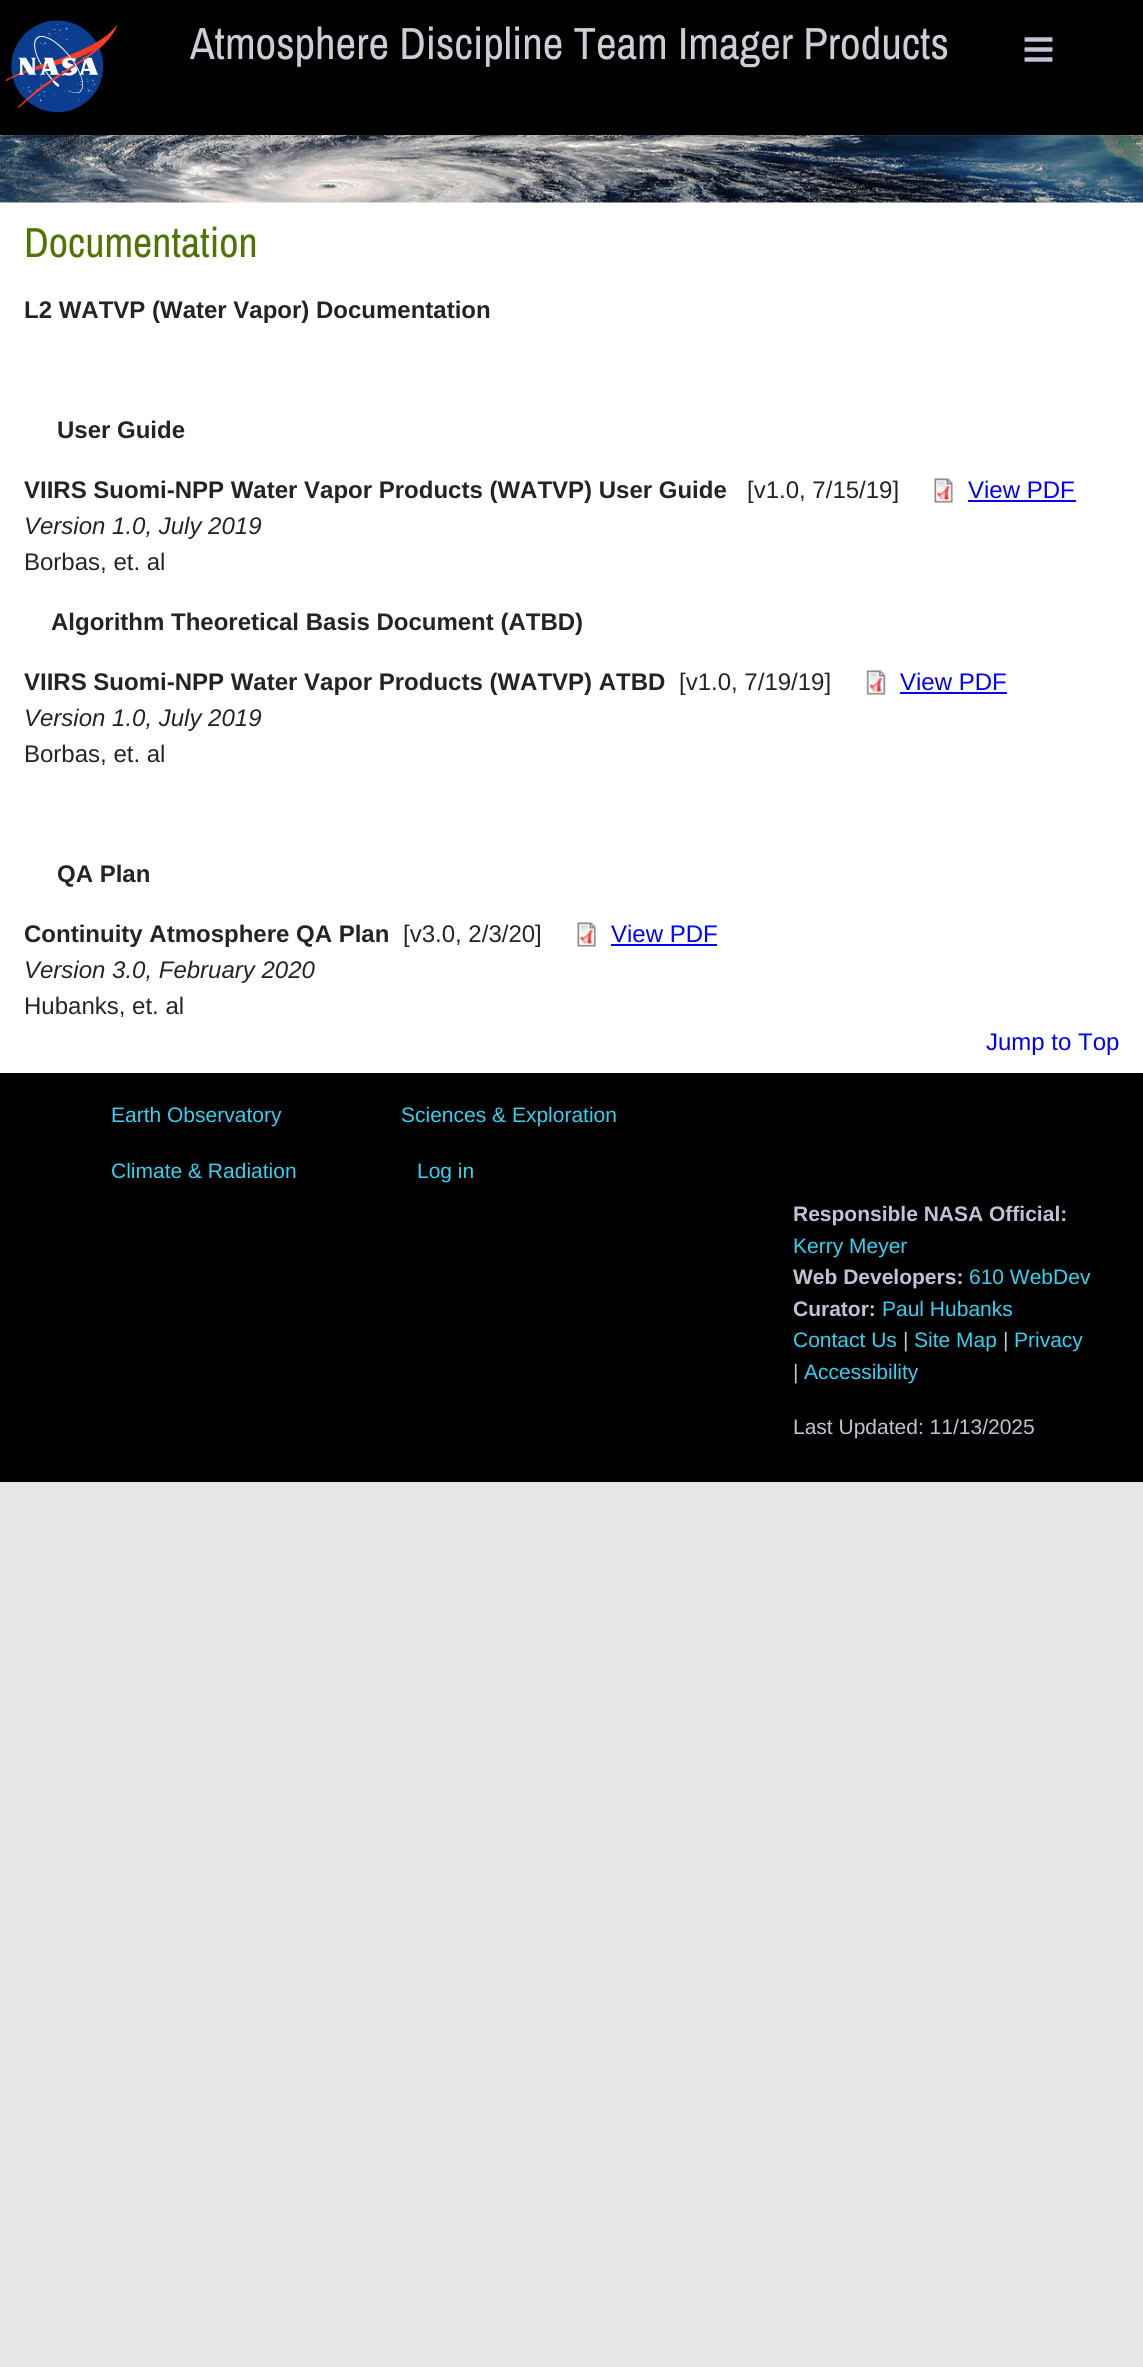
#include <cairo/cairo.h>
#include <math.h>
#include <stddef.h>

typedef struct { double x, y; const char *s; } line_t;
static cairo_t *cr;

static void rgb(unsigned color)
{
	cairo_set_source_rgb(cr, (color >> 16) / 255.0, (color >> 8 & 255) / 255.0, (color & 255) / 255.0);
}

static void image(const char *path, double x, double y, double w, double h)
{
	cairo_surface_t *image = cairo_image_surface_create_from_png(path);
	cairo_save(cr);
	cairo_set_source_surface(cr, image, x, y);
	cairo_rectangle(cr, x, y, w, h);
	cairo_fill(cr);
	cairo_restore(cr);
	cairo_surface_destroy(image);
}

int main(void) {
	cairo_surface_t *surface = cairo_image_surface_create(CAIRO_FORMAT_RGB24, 1143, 2367);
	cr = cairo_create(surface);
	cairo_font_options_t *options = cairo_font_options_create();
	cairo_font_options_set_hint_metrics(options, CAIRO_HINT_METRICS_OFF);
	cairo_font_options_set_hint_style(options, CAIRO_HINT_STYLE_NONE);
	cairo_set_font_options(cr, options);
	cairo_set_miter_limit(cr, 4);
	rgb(0xe6e6e6);
	cairo_paint(cr);
	rgb(0xffffff);
	cairo_rectangle(cr, 0, 202, 1143, 871);
	cairo_fill(cr);
	rgb(0x000000);
	cairo_rectangle(cr, 0, 0, 1143, 135);
	cairo_fill(cr);
	image("img/1.png", 5, 20, 113, 93);
	image("img/2.png", 1024, 37, 29, 25);
	image("img/3.png", 0, 135, 1143, 68);
	image("img/4.png", 934, 478, 19, 25);
	rgb(0x0000ff);
	cairo_rectangle(cr, 968, 500, 108, 2);
	cairo_fill(cr);
	image("img/5.png", 866, 670, 20, 25);
	cairo_rectangle(cr, 900, 692, 107, 2);
	cairo_fill(cr);
	image("img/6.png", 577, 922, 19, 25);
	cairo_rectangle(cr, 611, 944, 106, 2);
	cairo_fill(cr);
	rgb(0x000000);
	cairo_rectangle(cr, 0, 1073, 1143, 409);
	cairo_fill(cr);
	cairo_select_font_face(cr, "Archivo Narrow", CAIRO_FONT_SLANT_NORMAL, CAIRO_FONT_WEIGHT_NORMAL);
	cairo_set_font_size(cr, 45);
	rgb(0xcdcdd6);
	cairo_move_to(cr, 190, 59);
	cairo_show_text(cr, "Atmosphere Discipline Team Imager Products");
	cairo_set_font_size(cr, 42);
	rgb(0x4f7402);
	cairo_move_to(cr, 24, 257);
	cairo_show_text(cr, "Documentation");
	cairo_select_font_face(cr, "Liberation Sans", CAIRO_FONT_SLANT_NORMAL, CAIRO_FONT_WEIGHT_BOLD);
	cairo_set_font_size(cr, 24);
	rgb(0x212529);
	{
		static const line_t items[] = {
			{24, 318, "L2 WATVP (Water Vapor) Documentation"},
			{57, 438, "User Guide"},
			{24, 498, "VIIRS Suomi-NPP Water Vapor Products (WATVP) User Guide"},
		};
		for (size_t i = 0; i < sizeof items / sizeof *items; i++) {
			cairo_move_to(cr, items[i].x, items[i].y);
			cairo_show_text(cr, items[i].s);
		}
	}
	cairo_select_font_face(cr, "Liberation Sans", CAIRO_FONT_SLANT_NORMAL, CAIRO_FONT_WEIGHT_NORMAL);
	cairo_move_to(cr, 747, 498);
	cairo_show_text(cr, "[v1.0, 7/15/19]");
	rgb(0x0000ff);
	cairo_move_to(cr, 968, 498);
	cairo_show_text(cr, "View PDF");
	cairo_select_font_face(cr, "Liberation Sans", CAIRO_FONT_SLANT_ITALIC, CAIRO_FONT_WEIGHT_NORMAL);
	rgb(0x212529);
	cairo_move_to(cr, 24, 534);
	cairo_show_text(cr, "Version 1.0, July 2019");
	cairo_select_font_face(cr, "Liberation Sans", CAIRO_FONT_SLANT_NORMAL, CAIRO_FONT_WEIGHT_NORMAL);
	cairo_move_to(cr, 24, 570);
	cairo_show_text(cr, "Borbas, et. al");
	cairo_select_font_face(cr, "Liberation Sans", CAIRO_FONT_SLANT_NORMAL, CAIRO_FONT_WEIGHT_BOLD);
	cairo_move_to(cr, 51, 630);
	cairo_show_text(cr, "Algorithm Theoretical Basis Document (ATBD)");
	cairo_move_to(cr, 24, 690);
	cairo_show_text(cr, "VIIRS Suomi-NPP Water Vapor Products (WATVP) ATBD");
	cairo_select_font_face(cr, "Liberation Sans", CAIRO_FONT_SLANT_NORMAL, CAIRO_FONT_WEIGHT_NORMAL);
	cairo_move_to(cr, 679, 690);
	cairo_show_text(cr, "[v1.0, 7/19/19]");
	rgb(0x0000ff);
	cairo_move_to(cr, 900, 690);
	cairo_show_text(cr, "View PDF");
	cairo_select_font_face(cr, "Liberation Sans", CAIRO_FONT_SLANT_ITALIC, CAIRO_FONT_WEIGHT_NORMAL);
	rgb(0x212529);
	cairo_move_to(cr, 24, 726);
	cairo_show_text(cr, "Version 1.0, July 2019");
	cairo_select_font_face(cr, "Liberation Sans", CAIRO_FONT_SLANT_NORMAL, CAIRO_FONT_WEIGHT_NORMAL);
	cairo_move_to(cr, 24, 762);
	cairo_show_text(cr, "Borbas, et. al");
	cairo_select_font_face(cr, "Liberation Sans", CAIRO_FONT_SLANT_NORMAL, CAIRO_FONT_WEIGHT_BOLD);
	cairo_move_to(cr, 57, 882);
	cairo_show_text(cr, "QA Plan");
	cairo_move_to(cr, 24, 942);
	cairo_show_text(cr, "Continuity Atmosphere QA Plan");
	cairo_select_font_face(cr, "Liberation Sans", CAIRO_FONT_SLANT_NORMAL, CAIRO_FONT_WEIGHT_NORMAL);
	cairo_move_to(cr, 403, 942);
	cairo_show_text(cr, "[v3.0, 2/3/20]");
	rgb(0x0000ff);
	cairo_move_to(cr, 611, 942);
	cairo_show_text(cr, "View PDF");
	cairo_select_font_face(cr, "Liberation Sans", CAIRO_FONT_SLANT_ITALIC, CAIRO_FONT_WEIGHT_NORMAL);
	rgb(0x212529);
	cairo_move_to(cr, 24, 978);
	cairo_show_text(cr, "Version 3.0, February 2020");
	cairo_select_font_face(cr, "Liberation Sans", CAIRO_FONT_SLANT_NORMAL, CAIRO_FONT_WEIGHT_NORMAL);
	cairo_move_to(cr, 24, 1014);
	cairo_show_text(cr, "Hubanks, et. al");
	rgb(0x0000ff);
	cairo_move_to(cr, 986, 1050);
	cairo_show_text(cr, "Jump to Top");
	cairo_set_font_size(cr, 21);
	rgb(0x31d2f2);
	{
		static const line_t items[] = {
			{111, 1122, "Earth Observatory"},
			{401, 1122, "Sciences & Exploration"},
			{111, 1178, "Climate & Radiation"},
			{417, 1178, "Log in"},
		};
		for (size_t i = 0; i < sizeof items / sizeof *items; i++) {
			cairo_move_to(cr, items[i].x, items[i].y);
			cairo_show_text(cr, items[i].s);
		}
	}
	cairo_select_font_face(cr, "Liberation Sans", CAIRO_FONT_SLANT_NORMAL, CAIRO_FONT_WEIGHT_BOLD);
	rgb(0xc2c2d6);
	cairo_move_to(cr, 793, 1221);
	cairo_show_text(cr, "Responsible NASA Official:");
	cairo_select_font_face(cr, "Liberation Sans", CAIRO_FONT_SLANT_NORMAL, CAIRO_FONT_WEIGHT_NORMAL);
	rgb(0x31d2f2);
	cairo_move_to(cr, 793, 1253);
	cairo_show_text(cr, "Kerry Meyer");
	cairo_select_font_face(cr, "Liberation Sans", CAIRO_FONT_SLANT_NORMAL, CAIRO_FONT_WEIGHT_BOLD);
	rgb(0xc2c2d6);
	cairo_move_to(cr, 793, 1284);
	cairo_show_text(cr, "Web Developers:");
	cairo_select_font_face(cr, "Liberation Sans", CAIRO_FONT_SLANT_NORMAL, CAIRO_FONT_WEIGHT_NORMAL);
	rgb(0x31d2f2);
	cairo_move_to(cr, 969, 1284);
	cairo_show_text(cr, "610 WebDev");
	cairo_select_font_face(cr, "Liberation Sans", CAIRO_FONT_SLANT_NORMAL, CAIRO_FONT_WEIGHT_BOLD);
	rgb(0xc2c2d6);
	cairo_move_to(cr, 793, 1316);
	cairo_show_text(cr, "Curator:");
	cairo_select_font_face(cr, "Liberation Sans", CAIRO_FONT_SLANT_NORMAL, CAIRO_FONT_WEIGHT_NORMAL);
	rgb(0x31d2f2);
	cairo_move_to(cr, 882, 1316);
	cairo_show_text(cr, "Paul Hubanks");
	cairo_move_to(cr, 793, 1347);
	cairo_show_text(cr, "Contact Us");
	rgb(0xc2c2d6);
	cairo_move_to(cr, 903, 1347);
	cairo_show_text(cr, "|");
	rgb(0x31d2f2);
	cairo_move_to(cr, 914, 1347);
	cairo_show_text(cr, "Site Map");
	rgb(0xc2c2d6);
	cairo_move_to(cr, 1003, 1347);
	cairo_show_text(cr, "|");
	rgb(0x31d2f2);
	cairo_move_to(cr, 1014, 1347);
	cairo_show_text(cr, "Privacy");
	rgb(0xc2c2d6);
	cairo_move_to(cr, 793, 1379);
	cairo_show_text(cr, "|");
	rgb(0x31d2f2);
	cairo_move_to(cr, 804, 1379);
	cairo_show_text(cr, "Accessibility");
	rgb(0xc2c2d6);
	cairo_move_to(cr, 793, 1434);
	cairo_show_text(cr, "Last Updated: 11/13/2025");
	cairo_surface_write_to_png(surface, "page.png");
	cairo_font_options_destroy(options);
	cairo_destroy(cr);
	cairo_surface_destroy(surface);
	return 0;
}
